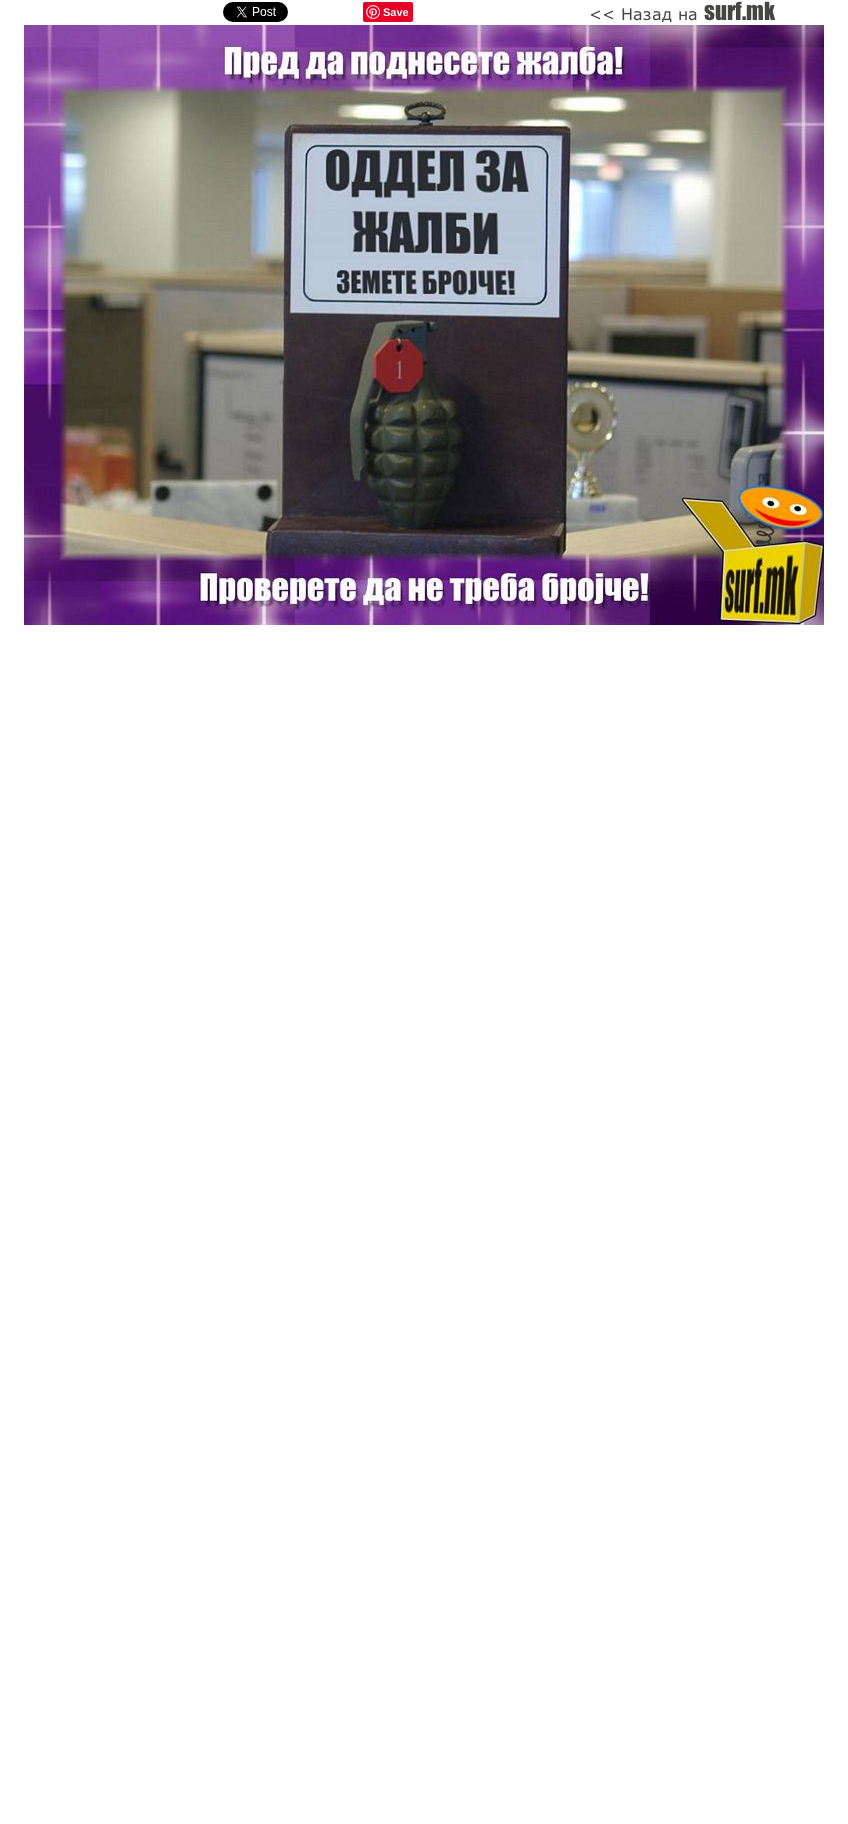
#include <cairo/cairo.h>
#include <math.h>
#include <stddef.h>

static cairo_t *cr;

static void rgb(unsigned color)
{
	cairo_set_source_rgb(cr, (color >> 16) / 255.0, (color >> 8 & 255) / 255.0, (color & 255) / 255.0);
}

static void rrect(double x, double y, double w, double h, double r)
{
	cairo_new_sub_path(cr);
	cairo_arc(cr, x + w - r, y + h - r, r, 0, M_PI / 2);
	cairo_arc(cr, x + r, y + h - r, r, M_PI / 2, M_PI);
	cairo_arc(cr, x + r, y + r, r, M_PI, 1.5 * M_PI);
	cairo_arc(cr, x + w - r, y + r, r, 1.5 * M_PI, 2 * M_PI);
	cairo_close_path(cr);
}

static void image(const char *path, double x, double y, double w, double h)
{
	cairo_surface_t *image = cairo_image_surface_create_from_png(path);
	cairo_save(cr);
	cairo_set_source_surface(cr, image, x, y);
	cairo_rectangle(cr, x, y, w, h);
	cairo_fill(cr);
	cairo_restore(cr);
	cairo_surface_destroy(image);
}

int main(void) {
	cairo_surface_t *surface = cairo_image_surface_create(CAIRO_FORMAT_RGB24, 848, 1824);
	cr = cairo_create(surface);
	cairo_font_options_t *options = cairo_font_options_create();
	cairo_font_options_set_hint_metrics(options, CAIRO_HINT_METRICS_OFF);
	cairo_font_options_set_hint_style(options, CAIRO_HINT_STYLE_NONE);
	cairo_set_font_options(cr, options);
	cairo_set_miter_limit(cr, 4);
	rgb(0xffffff);
	cairo_paint(cr);
	image("img/1.png", 223, 2, 65, 20);
	rgb(0xe60023);
	rrect(363, 2, 50, 20, 2);
	cairo_fill(cr);
	image("img/2.png", 366, 5, 14, 14);
	image("img/3.png", 591, 1, 184, 22);
	image("img/4.png", 24, 25, 800, 600);
	cairo_select_font_face(cr, "Liberation Sans", CAIRO_FONT_SLANT_NORMAL, CAIRO_FONT_WEIGHT_BOLD);
	cairo_set_font_size(cr, 11);
	rgb(0xffffff);
	cairo_move_to(cr, 383, 16);
	cairo_show_text(cr, "Save");
	cairo_surface_write_to_png(surface, "page.png");
	cairo_font_options_destroy(options);
	cairo_destroy(cr);
	cairo_surface_destroy(surface);
	return 0;
}
